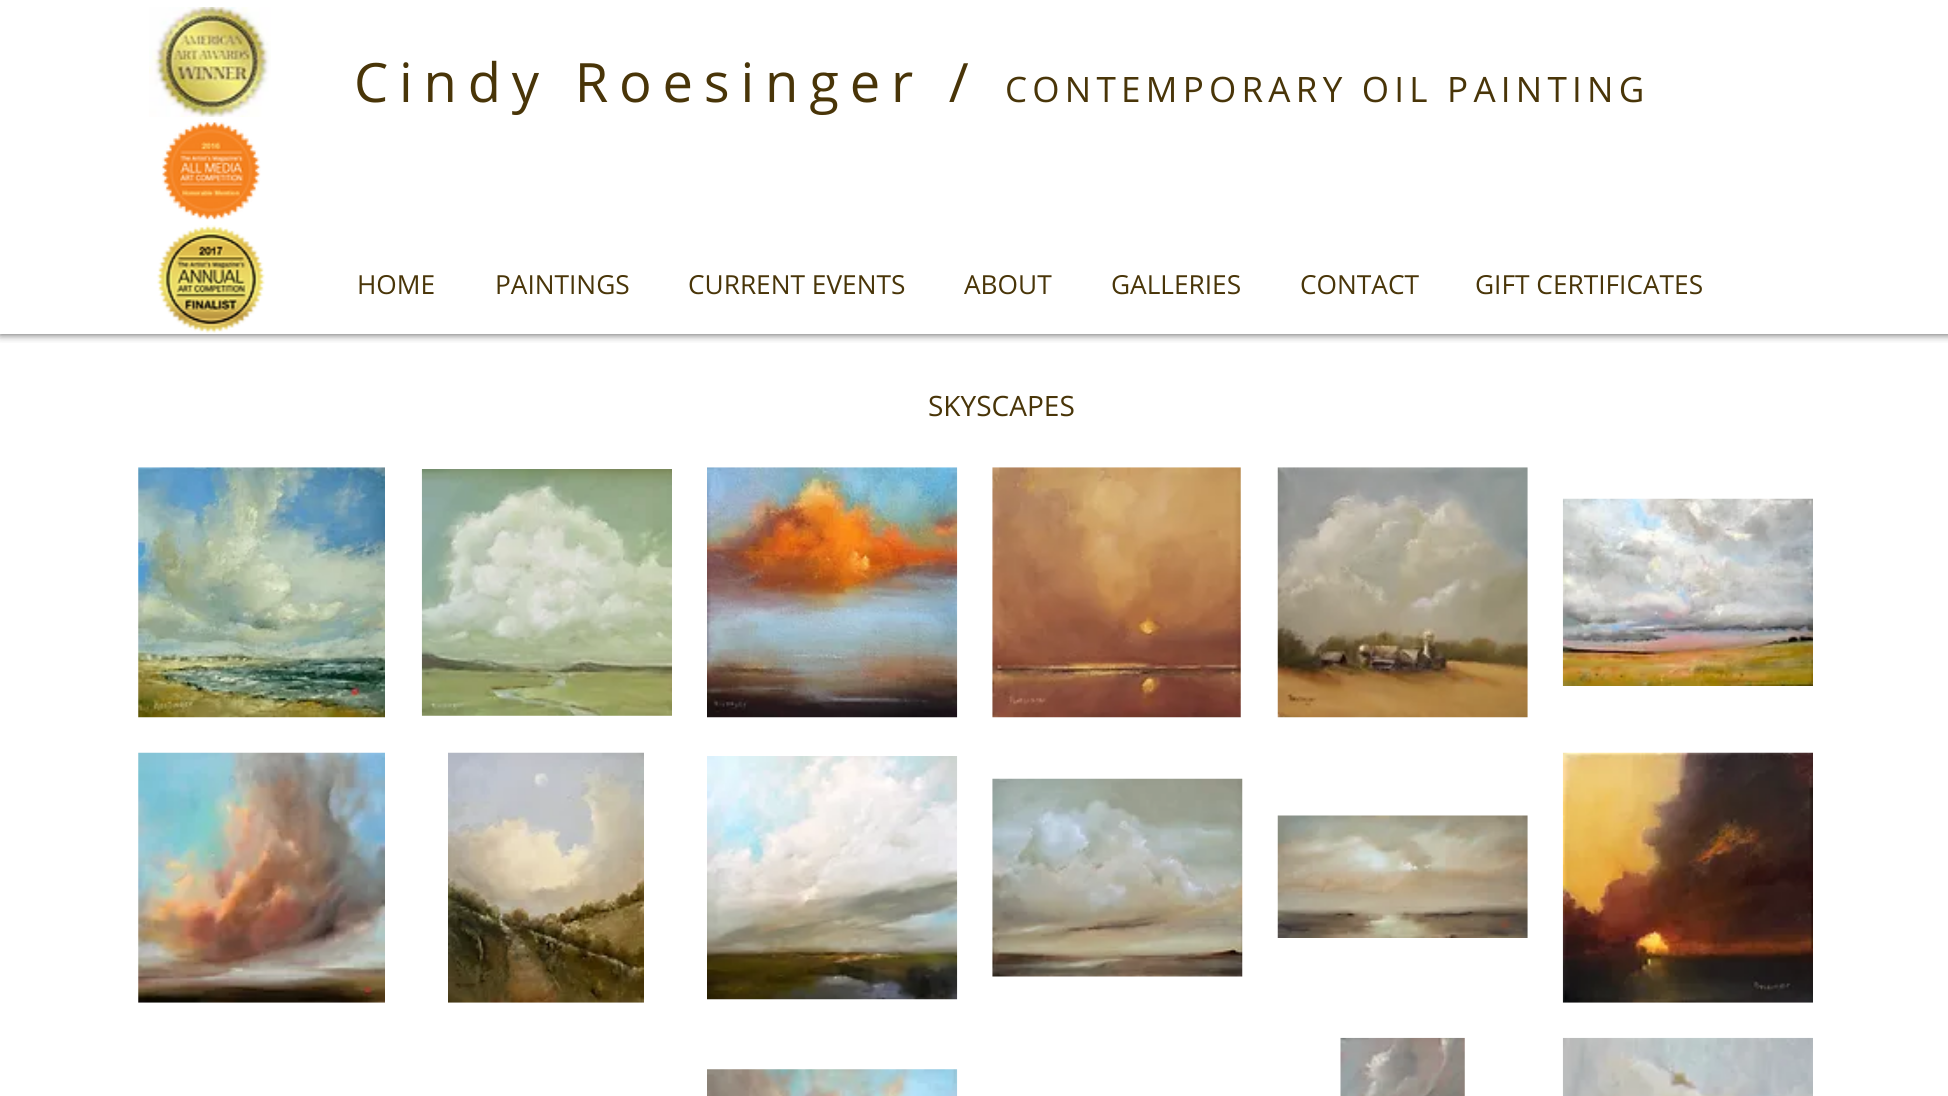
#include <cairo/cairo.h>
#include <math.h>
#include <stddef.h>

typedef struct { double x, y; const char *s; } line_t;
static cairo_t *cr;

static void rgb(unsigned color)
{
	cairo_set_source_rgb(cr, (color >> 16) / 255.0, (color >> 8 & 255) / 255.0, (color & 255) / 255.0);
}

static void tracked(double x, double y, const char *s, double letter, double word)
{
	cairo_move_to(cr, x, y);
	while (*s) {
		char ch[5] = {0};
		int n = 0;
		do ch[n++] = *s++; while ((*s & 0xC0) == 0x80);
		cairo_show_text(cr, ch);
		cairo_rel_move_to(cr, letter + word * (*ch == ' '), 0);
	}
}

static void rrect(double x, double y, double w, double h, double r)
{
	cairo_new_sub_path(cr);
	cairo_arc(cr, x + w - r, y + h - r, r, 0, M_PI / 2);
	cairo_arc(cr, x + r, y + h - r, r, M_PI / 2, M_PI);
	cairo_arc(cr, x + r, y + r, r, M_PI, 1.5 * M_PI);
	cairo_arc(cr, x + w - r, y + r, r, 1.5 * M_PI, 2 * M_PI);
	cairo_close_path(cr);
}

static void soft_shadow(double x, double y, double w, double h, double r, double blur, double alpha)
{
	cairo_push_group_with_content(cr, CAIRO_CONTENT_ALPHA);
	cairo_set_operator(cr, CAIRO_OPERATOR_SOURCE);
	for (int i = 15; i >= -15 && fmin(w, h) + blur * i / 3 > 0; i -= 2) {
		double e = blur * i / 6;
		cairo_set_source_rgba(cr, 0, 0, 0, alpha * erfc((i - 1) / 8.5) / 2);
		rrect(x - e, y - e, w + 2 * e, h + 2 * e, fmax(0, fmin(r + e + blur * .6, fmin(w, h) / 2 + e)));
		cairo_fill(cr);
	}
	cairo_pattern_t *soft = cairo_pop_group(cr);
	cairo_mask(cr, soft);
	cairo_pattern_destroy(soft);
}

static void image(const char *path, double x, double y, double w, double h)
{
	cairo_surface_t *image = cairo_image_surface_create_from_png(path);
	cairo_save(cr);
	cairo_set_source_surface(cr, image, x, y);
	cairo_rectangle(cr, x, y, w, h);
	cairo_fill(cr);
	cairo_restore(cr);
	cairo_surface_destroy(image);
}

int main(void) {
	cairo_surface_t *surface = cairo_image_surface_create(CAIRO_FORMAT_RGB24, 1948, 1096);
	cr = cairo_create(surface);
	cairo_font_options_t *options = cairo_font_options_create();
	cairo_font_options_set_hint_metrics(options, CAIRO_HINT_METRICS_OFF);
	cairo_font_options_set_hint_style(options, CAIRO_HINT_STYLE_NONE);
	cairo_set_font_options(cr, options);
	cairo_set_miter_limit(cr, 4);
	rgb(0xffffff);
	cairo_paint(cr);
	cairo_save(cr);
	cairo_rectangle(cr, 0, 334, 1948, 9);
	cairo_clip(cr);
	rgb(0x000000);
	soft_shadow(0, 0, 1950, 334, 0, 4.5, 0.7);
	cairo_restore(cr);
	image("img/1.png", 149, 7, 122, 110);
	image("img/2.png", 162, 122, 99, 98);
	image("img/3.png", 157, 225, 108, 108);
	image("img/4.png", 138, 467, 247, 251);
	image("img/5.png", 421, 469, 251, 247);
	image("img/6.png", 707, 467, 251, 251);
	image("img/7.png", 992, 467, 249, 251);
	image("img/8.png", 1277, 467, 251, 251);
	image("img/9.png", 1562, 498, 251, 188);
	image("img/10.png", 138, 752, 247, 251);
	image("img/11.png", 448, 752, 196, 251);
	image("img/12.png", 707, 756, 251, 244);
	image("img/13.png", 992, 778, 251, 199);
	image("img/14.png", 1277, 815, 251, 123);
	image("img/15.png", 1562, 752, 251, 251);
	image("img/16.png", 707, 1069, 251, 27);
	image("img/17.png", 1340, 1037, 125, 59);
	image("img/18.png", 1562, 1037, 251, 59);
	cairo_select_font_face(cr, "Open Sans", CAIRO_FONT_SLANT_NORMAL, CAIRO_FONT_WEIGHT_NORMAL);
	cairo_set_font_size(cr, 54.25);
	rgb(0x493508);
	tracked(354, 102, "Cindy Roesinger /", 10.8, 0);
	cairo_set_font_size(cr, 35);
	tracked(1005, 102, "CONTEMPORARY OIL PAINTING", 5.25, 0);
	cairo_set_font_size(cr, 26.25);
	{
		static const line_t items[] = {
			{357, 294, "HOME"},
			{495, 294, "PAINTINGS"},
			{688, 294, "CURRENT EVENTS"},
			{964, 294, "ABOUT"},
			{1111, 294, "GALLERIES"},
			{1300, 294, "CONTACT"},
			{1475, 294, "GIFT CERTIFICATES"},
		};
		for (size_t i = 0; i < sizeof items / sizeof *items; i++) {
			cairo_move_to(cr, items[i].x, items[i].y);
			cairo_show_text(cr, items[i].s);
		}
	}
	cairo_set_font_size(cr, 28);
	cairo_move_to(cr, 928, 416);
	cairo_show_text(cr, "SKYSCAPES");
	cairo_surface_write_to_png(surface, "page.png");
	cairo_font_options_destroy(options);
	cairo_destroy(cr);
	cairo_surface_destroy(surface);
	return 0;
}
